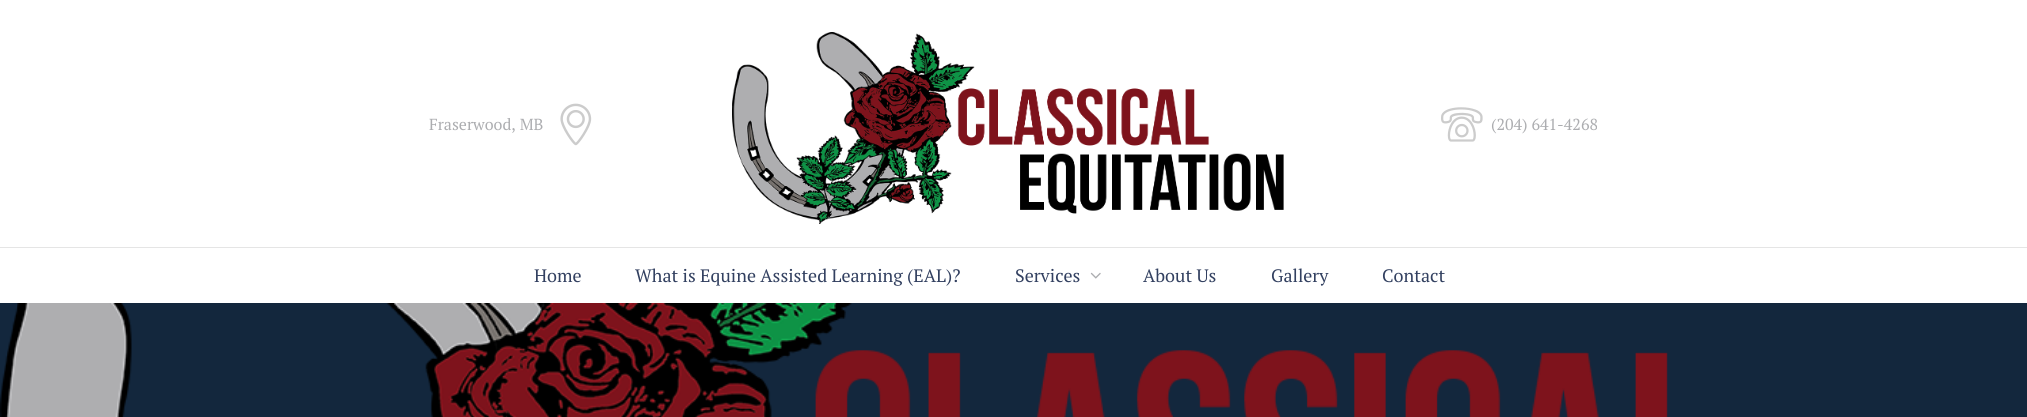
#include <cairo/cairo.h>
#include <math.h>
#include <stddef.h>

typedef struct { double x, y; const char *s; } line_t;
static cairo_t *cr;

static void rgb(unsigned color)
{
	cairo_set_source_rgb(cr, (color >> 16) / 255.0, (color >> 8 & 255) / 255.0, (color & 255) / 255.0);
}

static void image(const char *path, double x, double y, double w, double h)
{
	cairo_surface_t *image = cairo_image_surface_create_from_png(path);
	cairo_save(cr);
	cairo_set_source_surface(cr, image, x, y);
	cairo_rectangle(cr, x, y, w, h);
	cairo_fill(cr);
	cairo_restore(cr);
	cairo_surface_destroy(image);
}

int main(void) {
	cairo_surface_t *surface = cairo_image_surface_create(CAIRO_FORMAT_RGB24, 2027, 417);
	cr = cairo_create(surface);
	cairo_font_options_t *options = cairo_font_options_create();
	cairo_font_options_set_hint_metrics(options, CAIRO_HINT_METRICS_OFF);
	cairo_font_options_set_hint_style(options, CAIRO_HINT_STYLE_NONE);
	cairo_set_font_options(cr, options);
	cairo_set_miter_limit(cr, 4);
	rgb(0xffffff);
	cairo_paint(cr);
	image("img/1.png", 560, 103, 32, 43);
	image("img/2.png", 732, 32, 552, 192);
	image("img/3.png", 1441, 107, 42, 35);
	rgb(0xe5e5e5);
	cairo_rectangle(cr, 0, 247, 2027, 1);
	cairo_fill(cr);
	image("img/4.png", 1090, 272, 11, 7);
	rgb(0x13273d);
	cairo_rectangle(cr, 0, 303, 2027, 114);
	cairo_fill(cr);
	image("img/5.png", 0, 303, 1668, 114);
	cairo_select_font_face(cr, "PT Serif", CAIRO_FONT_SLANT_NORMAL, CAIRO_FONT_WEIGHT_NORMAL);
	cairo_set_font_size(cr, 16);
	rgb(0xacadb0);
	cairo_move_to(cr, 429, 130);
	cairo_show_text(cr, "Fraserwood, MB");
	cairo_move_to(cr, 1491, 130);
	cairo_show_text(cr, "(204) 641-4268");
	cairo_set_font_size(cr, 18);
	rgb(0x324060);
	{
		static const line_t items[] = {
			{534, 282, "Home"},
			{635, 282, "What is Equine Assisted Learning (EAL)?"},
			{1015, 282, "Services"},
			{1143, 282, "About Us"},
			{1271, 282, "Gallery"},
			{1382, 282, "Contact"},
		};
		for (size_t i = 0; i < sizeof items / sizeof *items; i++) {
			cairo_move_to(cr, items[i].x, items[i].y);
			cairo_show_text(cr, items[i].s);
		}
	}
	cairo_surface_write_to_png(surface, "page.png");
	cairo_font_options_destroy(options);
	cairo_destroy(cr);
	cairo_surface_destroy(surface);
	return 0;
}
